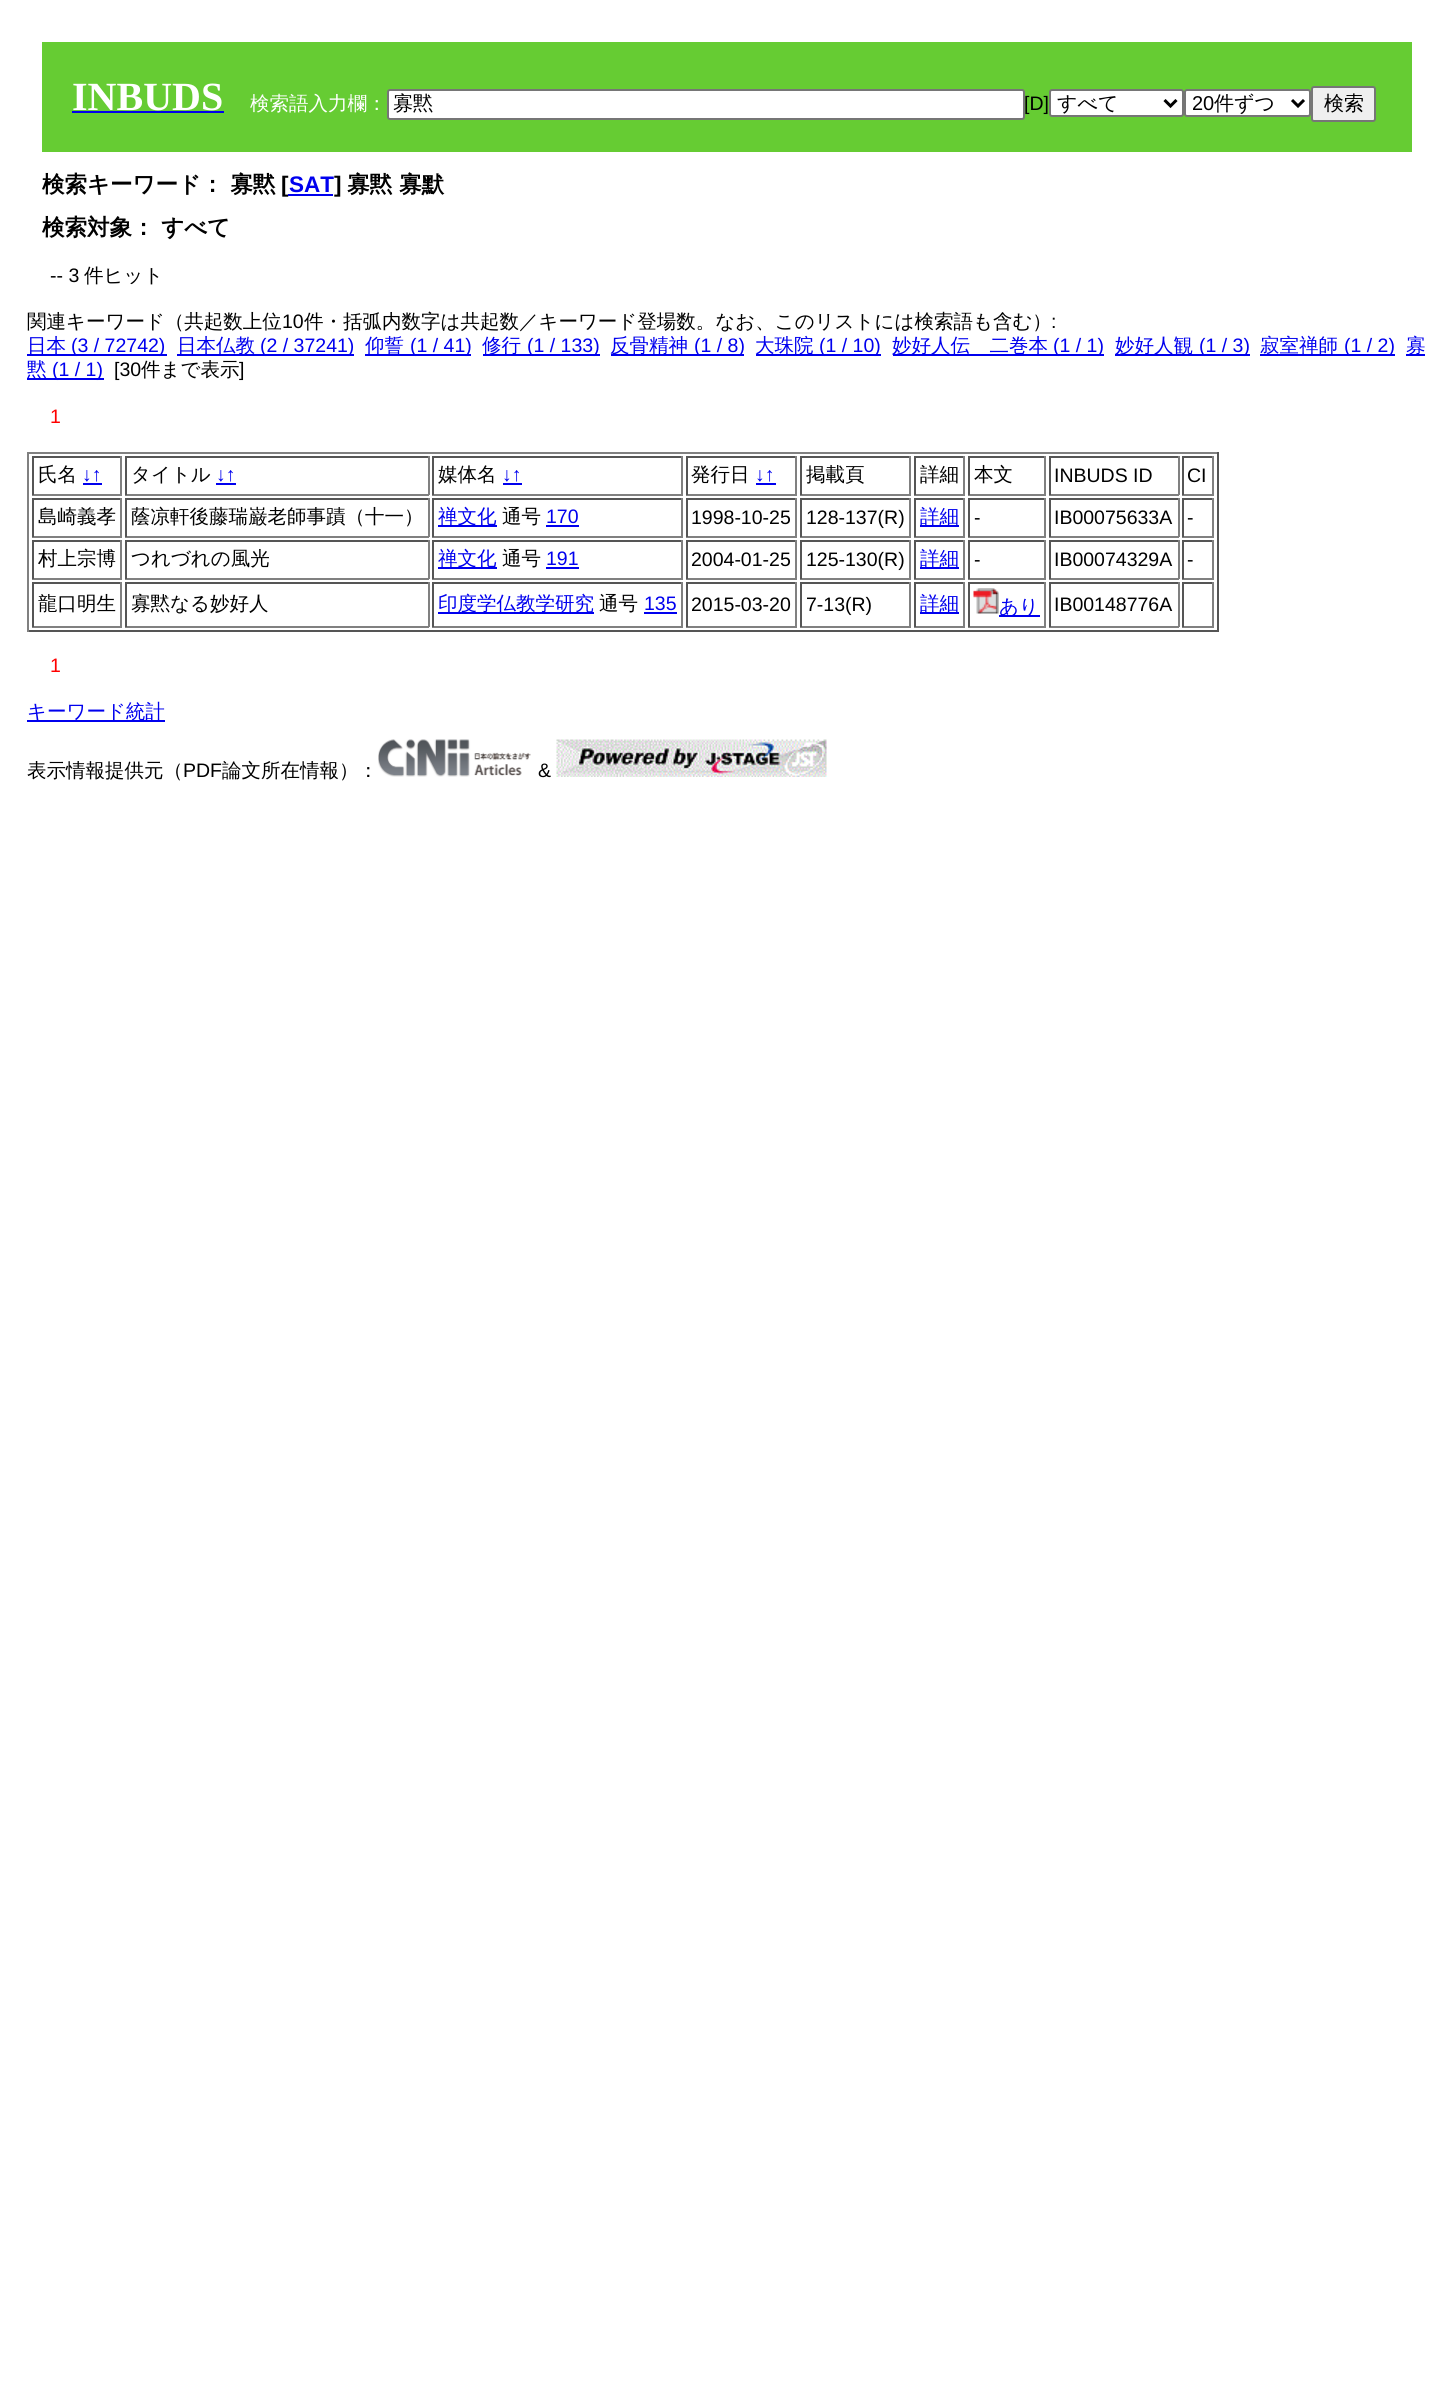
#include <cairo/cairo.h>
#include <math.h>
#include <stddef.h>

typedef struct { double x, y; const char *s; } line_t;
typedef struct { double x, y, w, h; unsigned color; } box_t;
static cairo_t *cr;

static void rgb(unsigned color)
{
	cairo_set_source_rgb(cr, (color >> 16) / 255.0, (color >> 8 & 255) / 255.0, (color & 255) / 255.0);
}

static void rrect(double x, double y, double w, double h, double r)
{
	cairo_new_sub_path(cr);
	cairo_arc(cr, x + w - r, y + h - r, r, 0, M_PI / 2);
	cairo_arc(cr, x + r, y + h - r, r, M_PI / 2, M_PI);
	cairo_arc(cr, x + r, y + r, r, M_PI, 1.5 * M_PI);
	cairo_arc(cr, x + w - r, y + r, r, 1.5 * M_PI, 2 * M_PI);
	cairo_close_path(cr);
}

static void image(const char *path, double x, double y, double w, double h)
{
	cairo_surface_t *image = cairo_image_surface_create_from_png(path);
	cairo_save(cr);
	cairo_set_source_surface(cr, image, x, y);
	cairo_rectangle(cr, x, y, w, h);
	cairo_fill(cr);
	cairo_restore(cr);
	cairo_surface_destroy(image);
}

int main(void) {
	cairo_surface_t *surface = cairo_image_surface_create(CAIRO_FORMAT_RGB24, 1453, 2387);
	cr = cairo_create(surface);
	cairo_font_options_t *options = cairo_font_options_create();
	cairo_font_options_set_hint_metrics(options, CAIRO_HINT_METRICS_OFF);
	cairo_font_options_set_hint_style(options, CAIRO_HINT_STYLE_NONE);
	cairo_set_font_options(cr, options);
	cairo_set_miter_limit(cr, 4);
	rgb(0xffffff);
	cairo_paint(cr);
	rgb(0x66cc33);
	cairo_rectangle(cr, 42, 42, 1370, 110);
	cairo_fill(cr);
	rgb(0x0000ee);
	cairo_rectangle(cr, 72, 111, 152, 2);
	cairo_fill(cr);
	rgb(0xffffff);
	rrect(388, 90, 636, 29, 2);
	cairo_fill_preserve(cr);
	rgb(0x767676);
	cairo_stroke(cr);
	rgb(0xffffff);
	rrect(1050, 90, 133, 26, 2);
	cairo_fill_preserve(cr);
	rgb(0x767676);
	cairo_stroke(cr);
	cairo_new_path(cr);
	cairo_move_to(cr, 1164.5, 100);
	cairo_line_to(cr, 1170.5, 106);
	cairo_line_to(cr, 1176.5, 100);
	rgb(0x000000);
	cairo_set_line_width(cr, 3);
	cairo_stroke(cr);
	rgb(0xffffff);
	rrect(1185, 90, 125, 26, 2);
	cairo_fill_preserve(cr);
	rgb(0x767676);
	cairo_set_line_width(cr, 2);
	cairo_stroke(cr);
	cairo_new_path(cr);
	cairo_move_to(cr, 1292, 100);
	cairo_line_to(cr, 1298, 106);
	cairo_line_to(cr, 1304, 100);
	rgb(0x000000);
	cairo_set_line_width(cr, 3);
	cairo_stroke(cr);
	rgb(0xefefef);
	rrect(1312, 87, 63, 34, 2);
	cairo_fill_preserve(cr);
	rgb(0x767676);
	cairo_set_line_width(cr, 2);
	cairo_stroke(cr);
	{
		static const box_t items[] = {
			{27, 354, 140, 2, 0x0000ee},
			{177, 354, 177, 2, 0x0000ee},
			{365, 354, 106, 2, 0x0000ee},
			{483, 354, 117, 2, 0x0000ee},
			{611, 354, 133, 2, 0x0000ee},
			{756, 354, 125, 2, 0x0000ee},
			{893, 354, 211, 2, 0x0000ee},
			{1115, 354, 135, 2, 0x0000ee},
			{1260, 354, 135, 2, 0x0000ee},
			{1406, 354, 19, 2, 0x0000ee},
			{27, 378, 77, 2, 0x0000ee},
			{27, 452, 1191, 2, 0x808080},
			{1217, 452, 2, 180, 0x555555},
			{27, 630, 1191, 2, 0x555555},
			{27, 452, 2, 180, 0x808080},
			{32, 456, 90, 2, 0x555555},
			{120, 456, 2, 39, 0x808080},
			{32, 494, 90, 2, 0x808080},
			{32, 456, 2, 39, 0x555555},
			{83, 483, 19, 2, 0x0000ee},
			{125, 456, 304, 2, 0x555555},
			{428, 456, 2, 39, 0x808080},
			{125, 494, 304, 2, 0x808080},
			{125, 456, 2, 39, 0x555555},
			{216, 483, 20, 2, 0x0000ee},
			{432, 456, 251, 2, 0x555555},
			{681, 456, 2, 39, 0x808080},
			{432, 494, 251, 2, 0x808080},
			{432, 456, 2, 39, 0x555555},
			{503, 483, 19, 2, 0x0000ee},
			{686, 456, 111, 2, 0x555555},
			{795, 456, 2, 39, 0x808080},
			{686, 494, 111, 2, 0x808080},
			{686, 456, 2, 39, 0x555555},
			{756, 483, 20, 2, 0x0000ee},
			{800, 456, 111, 2, 0x555555},
			{909, 456, 2, 39, 0x808080},
			{800, 494, 111, 2, 0x808080},
			{800, 456, 2, 39, 0x555555},
			{914, 456, 51, 2, 0x555555},
			{963, 456, 2, 39, 0x808080},
			{914, 494, 51, 2, 0x808080},
			{914, 456, 2, 39, 0x555555},
			{968, 456, 78, 2, 0x555555},
			{1044, 456, 2, 39, 0x808080},
			{968, 494, 78, 2, 0x808080},
			{968, 456, 2, 39, 0x555555},
			{1049, 456, 130, 2, 0x555555},
			{1178, 456, 2, 39, 0x808080},
			{1049, 494, 130, 2, 0x808080},
			{1049, 456, 2, 39, 0x555555},
			{1182, 456, 32, 2, 0x555555},
			{1212, 456, 2, 39, 0x808080},
			{1182, 494, 32, 2, 0x808080},
			{1182, 456, 2, 39, 0x555555},
			{32, 498, 90, 2, 0x555555},
			{120, 498, 2, 39, 0x808080},
			{32, 536, 90, 2, 0x808080},
			{32, 498, 2, 39, 0x555555},
			{125, 498, 304, 2, 0x555555},
			{428, 498, 2, 39, 0x808080},
			{125, 536, 304, 2, 0x808080},
			{125, 498, 2, 39, 0x555555},
			{432, 498, 251, 2, 0x555555},
			{681, 498, 2, 39, 0x808080},
			{432, 536, 251, 2, 0x808080},
			{432, 498, 2, 39, 0x555555},
			{438, 525, 59, 2, 0x0000ee},
			{546, 525, 33, 2, 0x0000ee},
			{686, 498, 111, 2, 0x555555},
			{795, 498, 2, 39, 0x808080},
			{686, 536, 111, 2, 0x808080},
			{686, 498, 2, 39, 0x555555},
			{800, 498, 111, 2, 0x555555},
			{909, 498, 2, 39, 0x808080},
			{800, 536, 111, 2, 0x808080},
			{800, 498, 2, 39, 0x555555},
			{914, 498, 51, 2, 0x555555},
			{963, 498, 2, 39, 0x808080},
			{914, 536, 51, 2, 0x808080},
			{914, 498, 2, 39, 0x555555},
			{920, 525, 39, 2, 0x0000ee},
			{968, 498, 78, 2, 0x555555},
			{1044, 498, 2, 39, 0x808080},
			{968, 536, 78, 2, 0x808080},
			{968, 498, 2, 39, 0x555555},
			{1049, 498, 130, 2, 0x555555},
			{1178, 498, 2, 39, 0x808080},
			{1049, 536, 130, 2, 0x808080},
			{1049, 498, 2, 39, 0x555555},
			{1182, 498, 32, 2, 0x555555},
			{1212, 498, 2, 39, 0x808080},
			{1182, 536, 32, 2, 0x808080},
			{1182, 498, 2, 39, 0x555555},
			{32, 540, 90, 2, 0x555555},
			{120, 540, 2, 39, 0x808080},
			{32, 578, 90, 2, 0x808080},
			{32, 540, 2, 39, 0x555555},
			{125, 540, 304, 2, 0x555555},
			{428, 540, 2, 39, 0x808080},
			{125, 578, 304, 2, 0x808080},
			{125, 540, 2, 39, 0x555555},
			{432, 540, 251, 2, 0x555555},
			{681, 540, 2, 39, 0x808080},
			{432, 578, 251, 2, 0x808080},
			{432, 540, 2, 39, 0x555555},
			{438, 567, 59, 2, 0x0000ee},
			{546, 567, 33, 2, 0x0000ee},
			{686, 540, 111, 2, 0x555555},
			{795, 540, 2, 39, 0x808080},
			{686, 578, 111, 2, 0x808080},
			{686, 540, 2, 39, 0x555555},
			{800, 540, 111, 2, 0x555555},
			{909, 540, 2, 39, 0x808080},
			{800, 578, 111, 2, 0x808080},
			{800, 540, 2, 39, 0x555555},
			{914, 540, 51, 2, 0x555555},
			{963, 540, 2, 39, 0x808080},
			{914, 578, 51, 2, 0x808080},
			{914, 540, 2, 39, 0x555555},
			{920, 567, 39, 2, 0x0000ee},
			{968, 540, 78, 2, 0x555555},
			{1044, 540, 2, 39, 0x808080},
			{968, 578, 78, 2, 0x808080},
			{968, 540, 2, 39, 0x555555},
			{1049, 540, 130, 2, 0x555555},
			{1178, 540, 2, 39, 0x808080},
			{1049, 578, 130, 2, 0x808080},
			{1049, 540, 2, 39, 0x555555},
			{1182, 540, 32, 2, 0x555555},
			{1212, 540, 2, 39, 0x808080},
			{1182, 578, 32, 2, 0x808080},
			{1182, 540, 2, 39, 0x555555},
			{32, 582, 90, 2, 0x555555},
			{120, 582, 2, 45, 0x808080},
			{32, 626, 90, 2, 0x808080},
			{32, 582, 2, 45, 0x555555},
			{125, 582, 304, 2, 0x555555},
			{428, 582, 2, 45, 0x808080},
			{125, 626, 304, 2, 0x808080},
			{125, 582, 2, 45, 0x555555},
			{432, 582, 251, 2, 0x555555},
			{681, 582, 2, 45, 0x808080},
			{432, 626, 251, 2, 0x808080},
			{432, 582, 2, 45, 0x555555},
			{438, 612, 156, 2, 0x0000ee},
			{644, 612, 33, 2, 0x0000ee},
			{686, 582, 111, 2, 0x555555},
			{795, 582, 2, 45, 0x808080},
			{686, 626, 111, 2, 0x808080},
			{686, 582, 2, 45, 0x555555},
			{800, 582, 111, 2, 0x555555},
			{909, 582, 2, 45, 0x808080},
			{800, 626, 111, 2, 0x808080},
			{800, 582, 2, 45, 0x555555},
			{914, 582, 51, 2, 0x555555},
			{963, 582, 2, 45, 0x808080},
			{914, 626, 51, 2, 0x808080},
			{914, 582, 2, 45, 0x555555},
			{920, 612, 39, 2, 0x0000ee},
			{968, 582, 78, 2, 0x555555},
			{1044, 582, 2, 45, 0x808080},
			{968, 626, 78, 2, 0x808080},
			{968, 582, 2, 45, 0x555555},
		};
		for (size_t i = 0; i < sizeof items / sizeof *items; i++) {
			rgb(items[i].color);
			cairo_rectangle(cr, items[i].x, items[i].y, items[i].w, items[i].h);
			cairo_fill(cr);
		}
	}
	image("img/1.png", 973, 588, 26, 26);
	{
		static const box_t items[] = {
			{999, 615, 41, 2, 0x0000ee},
			{1049, 582, 130, 2, 0x555555},
			{1178, 582, 2, 45, 0x808080},
			{1049, 626, 130, 2, 0x808080},
			{1049, 582, 2, 45, 0x555555},
			{1182, 582, 32, 2, 0x555555},
			{1212, 582, 2, 45, 0x808080},
			{1182, 626, 32, 2, 0x808080},
			{1182, 582, 2, 45, 0x555555},
			{27, 720, 138, 2, 0x0000ee},
		};
		for (size_t i = 0; i < sizeof items / sizeof *items; i++) {
			rgb(items[i].color);
			cairo_rectangle(cr, items[i].x, items[i].y, items[i].w, items[i].h);
			cairo_fill(cr);
		}
	}
	image("img/2.png", 378, 739, 153, 38);
	image("img/3.png", 556, 739, 271, 38);
	cairo_select_font_face(cr, "Liberation Serif", CAIRO_FONT_SLANT_NORMAL, CAIRO_FONT_WEIGHT_BOLD);
	cairo_set_font_size(cr, 40);
	rgb(0xffffff);
	cairo_move_to(cr, 72, 110);
	cairo_show_text(cr, "INBUDS");
	cairo_select_font_face(cr, "WenQuanYi Zen Hei Medium", CAIRO_FONT_SLANT_NORMAL, CAIRO_FONT_WEIGHT_NORMAL);
	cairo_set_font_size(cr, 19.5);
	cairo_move_to(cr, 250, 110);
	cairo_show_text(cr, "検索語入力欄：");
	cairo_set_font_size(cr, 20);
	rgb(0x000000);
	cairo_move_to(cr, 393, 110);
	cairo_show_text(cr, "寡黙");
	cairo_select_font_face(cr, "Liberation Sans", CAIRO_FONT_SLANT_NORMAL, CAIRO_FONT_WEIGHT_NORMAL);
	cairo_set_font_size(cr, 19.5);
	cairo_move_to(cr, 1024, 110);
	cairo_show_text(cr, "[D]");
	cairo_select_font_face(cr, "WenQuanYi Zen Hei Medium", CAIRO_FONT_SLANT_NORMAL, CAIRO_FONT_WEIGHT_NORMAL);
	cairo_set_font_size(cr, 20);
	cairo_move_to(cr, 1057, 110);
	cairo_show_text(cr, "すべて");
	cairo_select_font_face(cr, "Liberation Sans", CAIRO_FONT_SLANT_NORMAL, CAIRO_FONT_WEIGHT_NORMAL);
	cairo_move_to(cr, 1192, 110);
	cairo_show_text(cr, "20");
	cairo_select_font_face(cr, "WenQuanYi Zen Hei Medium", CAIRO_FONT_SLANT_NORMAL, CAIRO_FONT_WEIGHT_NORMAL);
	cairo_move_to(cr, 1214, 110);
	cairo_show_text(cr, "件ずつ");
	cairo_move_to(cr, 1324, 110);
	cairo_show_text(cr, "検索");
	cairo_select_font_face(cr, "WenQuanYi Zen Hei", CAIRO_FONT_SLANT_NORMAL, CAIRO_FONT_WEIGHT_BOLD);
	cairo_set_font_size(cr, 22.5);
	cairo_move_to(cr, 42, 192);
	cairo_show_text(cr, "検索キーワード： 寡黙");
	cairo_select_font_face(cr, "Liberation Sans", CAIRO_FONT_SLANT_NORMAL, CAIRO_FONT_WEIGHT_BOLD);
	cairo_move_to(cr, 281, 192);
	cairo_show_text(cr, "[");
	rgb(0x0000ee);
	cairo_move_to(cr, 289, 192);
	cairo_show_text(cr, "SAT");
	cairo_rectangle(cr, 288, 194, 45, 2);
	cairo_fill(cr);
	rgb(0x000000);
	cairo_move_to(cr, 334, 192);
	cairo_show_text(cr, "]");
	cairo_select_font_face(cr, "WenQuanYi Zen Hei", CAIRO_FONT_SLANT_NORMAL, CAIRO_FONT_WEIGHT_BOLD);
	{
		static const line_t items[] = {
			{347, 192, "寡黙"},
			{399, 192, "寡默"},
			{42, 235, "検索対象： すべて"},
		};
		for (size_t i = 0; i < sizeof items / sizeof *items; i++) {
			cairo_move_to(cr, items[i].x, items[i].y);
			cairo_show_text(cr, items[i].s);
		}
	}
	cairo_select_font_face(cr, "Liberation Sans", CAIRO_FONT_SLANT_NORMAL, CAIRO_FONT_WEIGHT_NORMAL);
	cairo_set_font_size(cr, 19.5);
	cairo_move_to(cr, 50, 282);
	cairo_show_text(cr, "-- 3");
	cairo_select_font_face(cr, "WenQuanYi Zen Hei Medium", CAIRO_FONT_SLANT_NORMAL, CAIRO_FONT_WEIGHT_NORMAL);
	cairo_move_to(cr, 84, 282);
	cairo_show_text(cr, "件ヒット");
	cairo_move_to(cr, 27, 328);
	cairo_show_text(cr, "関連キーワード（共起数上位");
	cairo_select_font_face(cr, "Liberation Sans", CAIRO_FONT_SLANT_NORMAL, CAIRO_FONT_WEIGHT_NORMAL);
	cairo_move_to(cr, 282, 328);
	cairo_show_text(cr, "10");
	cairo_select_font_face(cr, "WenQuanYi Zen Hei Medium", CAIRO_FONT_SLANT_NORMAL, CAIRO_FONT_WEIGHT_NORMAL);
	cairo_move_to(cr, 304, 328);
	cairo_show_text(cr, "件・括弧内数字は共起数／キーワード登場数。なお、このリストには検索語も含む）");
	cairo_select_font_face(cr, "Liberation Sans", CAIRO_FONT_SLANT_NORMAL, CAIRO_FONT_WEIGHT_NORMAL);
	cairo_move_to(cr, 1051, 328);
	cairo_show_text(cr, ":");
	cairo_select_font_face(cr, "WenQuanYi Zen Hei Medium", CAIRO_FONT_SLANT_NORMAL, CAIRO_FONT_WEIGHT_NORMAL);
	rgb(0x0000ee);
	cairo_move_to(cr, 27, 352);
	cairo_show_text(cr, "日本");
	cairo_select_font_face(cr, "Liberation Sans", CAIRO_FONT_SLANT_NORMAL, CAIRO_FONT_WEIGHT_NORMAL);
	cairo_move_to(cr, 71, 352);
	cairo_show_text(cr, "(3 / 72742)");
	cairo_select_font_face(cr, "WenQuanYi Zen Hei Medium", CAIRO_FONT_SLANT_NORMAL, CAIRO_FONT_WEIGHT_NORMAL);
	cairo_move_to(cr, 177, 352);
	cairo_show_text(cr, "日本仏教");
	cairo_select_font_face(cr, "Liberation Sans", CAIRO_FONT_SLANT_NORMAL, CAIRO_FONT_WEIGHT_NORMAL);
	cairo_move_to(cr, 260, 352);
	cairo_show_text(cr, "(2 / 37241)");
	cairo_select_font_face(cr, "WenQuanYi Zen Hei Medium", CAIRO_FONT_SLANT_NORMAL, CAIRO_FONT_WEIGHT_NORMAL);
	cairo_move_to(cr, 365, 352);
	cairo_show_text(cr, "仰誓");
	cairo_select_font_face(cr, "Liberation Sans", CAIRO_FONT_SLANT_NORMAL, CAIRO_FONT_WEIGHT_NORMAL);
	cairo_move_to(cr, 410, 352);
	cairo_show_text(cr, "(1 / 41)");
	cairo_select_font_face(cr, "WenQuanYi Zen Hei Medium", CAIRO_FONT_SLANT_NORMAL, CAIRO_FONT_WEIGHT_NORMAL);
	cairo_move_to(cr, 482, 352);
	cairo_show_text(cr, "修行");
	cairo_select_font_face(cr, "Liberation Sans", CAIRO_FONT_SLANT_NORMAL, CAIRO_FONT_WEIGHT_NORMAL);
	cairo_move_to(cr, 527, 352);
	cairo_show_text(cr, "(1 / 133)");
	cairo_select_font_face(cr, "WenQuanYi Zen Hei Medium", CAIRO_FONT_SLANT_NORMAL, CAIRO_FONT_WEIGHT_NORMAL);
	cairo_move_to(cr, 610, 352);
	cairo_show_text(cr, "反骨精神");
	cairo_select_font_face(cr, "Liberation Sans", CAIRO_FONT_SLANT_NORMAL, CAIRO_FONT_WEIGHT_NORMAL);
	cairo_move_to(cr, 694, 352);
	cairo_show_text(cr, "(1 / 8)");
	cairo_select_font_face(cr, "WenQuanYi Zen Hei Medium", CAIRO_FONT_SLANT_NORMAL, CAIRO_FONT_WEIGHT_NORMAL);
	cairo_move_to(cr, 755, 352);
	cairo_show_text(cr, "大珠院");
	cairo_select_font_face(cr, "Liberation Sans", CAIRO_FONT_SLANT_NORMAL, CAIRO_FONT_WEIGHT_NORMAL);
	cairo_move_to(cr, 819, 352);
	cairo_show_text(cr, "(1 / 10)");
	cairo_select_font_face(cr, "WenQuanYi Zen Hei Medium", CAIRO_FONT_SLANT_NORMAL, CAIRO_FONT_WEIGHT_NORMAL);
	cairo_move_to(cr, 892, 352);
	cairo_show_text(cr, "妙好人伝　二巻本");
	cairo_select_font_face(cr, "Liberation Sans", CAIRO_FONT_SLANT_NORMAL, CAIRO_FONT_WEIGHT_NORMAL);
	cairo_move_to(cr, 1053, 352);
	cairo_show_text(cr, "(1 / 1)");
	cairo_select_font_face(cr, "WenQuanYi Zen Hei Medium", CAIRO_FONT_SLANT_NORMAL, CAIRO_FONT_WEIGHT_NORMAL);
	cairo_move_to(cr, 1115, 352);
	cairo_show_text(cr, "妙好人観");
	cairo_select_font_face(cr, "Liberation Sans", CAIRO_FONT_SLANT_NORMAL, CAIRO_FONT_WEIGHT_NORMAL);
	cairo_move_to(cr, 1199, 352);
	cairo_show_text(cr, "(1 / 3)");
	cairo_select_font_face(cr, "WenQuanYi Zen Hei Medium", CAIRO_FONT_SLANT_NORMAL, CAIRO_FONT_WEIGHT_NORMAL);
	cairo_move_to(cr, 1260, 352);
	cairo_show_text(cr, "寂室禅師");
	cairo_select_font_face(cr, "Liberation Sans", CAIRO_FONT_SLANT_NORMAL, CAIRO_FONT_WEIGHT_NORMAL);
	cairo_move_to(cr, 1344, 352);
	cairo_show_text(cr, "(1 / 2)");
	cairo_select_font_face(cr, "WenQuanYi Zen Hei Medium", CAIRO_FONT_SLANT_NORMAL, CAIRO_FONT_WEIGHT_NORMAL);
	cairo_move_to(cr, 1406, 352);
	cairo_show_text(cr, "寡");
	cairo_move_to(cr, 27, 376);
	cairo_show_text(cr, "黙");
	cairo_select_font_face(cr, "Liberation Sans", CAIRO_FONT_SLANT_NORMAL, CAIRO_FONT_WEIGHT_NORMAL);
	cairo_move_to(cr, 52, 376);
	cairo_show_text(cr, "(1 / 1)");
	rgb(0x000000);
	cairo_move_to(cr, 114, 376);
	cairo_show_text(cr, "[30");
	cairo_select_font_face(cr, "WenQuanYi Zen Hei Medium", CAIRO_FONT_SLANT_NORMAL, CAIRO_FONT_WEIGHT_NORMAL);
	cairo_move_to(cr, 141, 376);
	cairo_show_text(cr, "件まで表示");
	cairo_select_font_face(cr, "Liberation Sans", CAIRO_FONT_SLANT_NORMAL, CAIRO_FONT_WEIGHT_NORMAL);
	cairo_move_to(cr, 239, 376);
	cairo_show_text(cr, "]");
	rgb(0xff0000);
	cairo_move_to(cr, 50, 423);
	cairo_show_text(cr, "1");
	cairo_select_font_face(cr, "WenQuanYi Zen Hei Medium", CAIRO_FONT_SLANT_NORMAL, CAIRO_FONT_WEIGHT_NORMAL);
	rgb(0x000000);
	cairo_move_to(cr, 38, 481);
	cairo_show_text(cr, "氏名");
	cairo_select_font_face(cr, "Liberation Sans", CAIRO_FONT_SLANT_NORMAL, CAIRO_FONT_WEIGHT_NORMAL);
	rgb(0x0000ee);
	cairo_move_to(cr, 82, 481);
	cairo_show_text(cr, "↓↑");
	cairo_select_font_face(cr, "WenQuanYi Zen Hei Medium", CAIRO_FONT_SLANT_NORMAL, CAIRO_FONT_WEIGHT_NORMAL);
	rgb(0x000000);
	cairo_move_to(cr, 131, 481);
	cairo_show_text(cr, "タイトル");
	cairo_select_font_face(cr, "Liberation Sans", CAIRO_FONT_SLANT_NORMAL, CAIRO_FONT_WEIGHT_NORMAL);
	rgb(0x0000ee);
	cairo_move_to(cr, 216, 481);
	cairo_show_text(cr, "↓↑");
	cairo_select_font_face(cr, "WenQuanYi Zen Hei Medium", CAIRO_FONT_SLANT_NORMAL, CAIRO_FONT_WEIGHT_NORMAL);
	rgb(0x000000);
	cairo_move_to(cr, 438, 481);
	cairo_show_text(cr, "媒体名");
	cairo_select_font_face(cr, "Liberation Sans", CAIRO_FONT_SLANT_NORMAL, CAIRO_FONT_WEIGHT_NORMAL);
	rgb(0x0000ee);
	cairo_move_to(cr, 502, 481);
	cairo_show_text(cr, "↓↑");
	cairo_select_font_face(cr, "WenQuanYi Zen Hei Medium", CAIRO_FONT_SLANT_NORMAL, CAIRO_FONT_WEIGHT_NORMAL);
	rgb(0x000000);
	cairo_move_to(cr, 691, 481);
	cairo_show_text(cr, "発行日");
	cairo_select_font_face(cr, "Liberation Sans", CAIRO_FONT_SLANT_NORMAL, CAIRO_FONT_WEIGHT_NORMAL);
	rgb(0x0000ee);
	cairo_move_to(cr, 755, 481);
	cairo_show_text(cr, "↓↑");
	cairo_select_font_face(cr, "WenQuanYi Zen Hei Medium", CAIRO_FONT_SLANT_NORMAL, CAIRO_FONT_WEIGHT_NORMAL);
	rgb(0x000000);
	{
		static const line_t items[] = {
			{806, 481, "掲載頁"},
			{920, 481, "詳細"},
			{974, 481, "本文"},
		};
		for (size_t i = 0; i < sizeof items / sizeof *items; i++) {
			cairo_move_to(cr, items[i].x, items[i].y);
			cairo_show_text(cr, items[i].s);
		}
	}
	cairo_select_font_face(cr, "Liberation Sans", CAIRO_FONT_SLANT_NORMAL, CAIRO_FONT_WEIGHT_NORMAL);
	cairo_move_to(cr, 1054, 482);
	cairo_show_text(cr, "INBUDS ID");
	cairo_move_to(cr, 1187, 482);
	cairo_show_text(cr, "CI");
	cairo_select_font_face(cr, "WenQuanYi Zen Hei Medium", CAIRO_FONT_SLANT_NORMAL, CAIRO_FONT_WEIGHT_NORMAL);
	cairo_move_to(cr, 38, 523);
	cairo_show_text(cr, "島崎義孝");
	cairo_move_to(cr, 131, 523);
	cairo_show_text(cr, "蔭凉軒後藤瑞巌老師事蹟（十一）");
	rgb(0x0000ee);
	cairo_move_to(cr, 438, 523);
	cairo_show_text(cr, "禅文化");
	rgb(0x000000);
	cairo_move_to(cr, 502, 523);
	cairo_show_text(cr, "通号");
	cairo_select_font_face(cr, "Liberation Sans", CAIRO_FONT_SLANT_NORMAL, CAIRO_FONT_WEIGHT_NORMAL);
	rgb(0x0000ee);
	cairo_move_to(cr, 546, 523);
	cairo_show_text(cr, "170");
	rgb(0x000000);
	cairo_move_to(cr, 691, 524);
	cairo_show_text(cr, "1998-10-25");
	cairo_move_to(cr, 806, 524);
	cairo_show_text(cr, "128-137(R)");
	cairo_select_font_face(cr, "WenQuanYi Zen Hei Medium", CAIRO_FONT_SLANT_NORMAL, CAIRO_FONT_WEIGHT_NORMAL);
	rgb(0x0000ee);
	cairo_move_to(cr, 920, 523);
	cairo_show_text(cr, "詳細");
	cairo_select_font_face(cr, "Liberation Sans", CAIRO_FONT_SLANT_NORMAL, CAIRO_FONT_WEIGHT_NORMAL);
	rgb(0x000000);
	{
		static const line_t items[] = {
			{974, 524, "-"},
			{1054, 524, "IB00075633A"},
			{1187, 524, "-"},
		};
		for (size_t i = 0; i < sizeof items / sizeof *items; i++) {
			cairo_move_to(cr, items[i].x, items[i].y);
			cairo_show_text(cr, items[i].s);
		}
	}
	cairo_select_font_face(cr, "WenQuanYi Zen Hei Medium", CAIRO_FONT_SLANT_NORMAL, CAIRO_FONT_WEIGHT_NORMAL);
	cairo_move_to(cr, 38, 565);
	cairo_show_text(cr, "村上宗博");
	cairo_move_to(cr, 131, 565);
	cairo_show_text(cr, "つれづれの風光");
	rgb(0x0000ee);
	cairo_move_to(cr, 438, 565);
	cairo_show_text(cr, "禅文化");
	rgb(0x000000);
	cairo_move_to(cr, 502, 565);
	cairo_show_text(cr, "通号");
	cairo_select_font_face(cr, "Liberation Sans", CAIRO_FONT_SLANT_NORMAL, CAIRO_FONT_WEIGHT_NORMAL);
	rgb(0x0000ee);
	cairo_move_to(cr, 546, 565);
	cairo_show_text(cr, "191");
	rgb(0x000000);
	cairo_move_to(cr, 691, 566);
	cairo_show_text(cr, "2004-01-25");
	cairo_move_to(cr, 806, 566);
	cairo_show_text(cr, "125-130(R)");
	cairo_select_font_face(cr, "WenQuanYi Zen Hei Medium", CAIRO_FONT_SLANT_NORMAL, CAIRO_FONT_WEIGHT_NORMAL);
	rgb(0x0000ee);
	cairo_move_to(cr, 920, 565);
	cairo_show_text(cr, "詳細");
	cairo_select_font_face(cr, "Liberation Sans", CAIRO_FONT_SLANT_NORMAL, CAIRO_FONT_WEIGHT_NORMAL);
	rgb(0x000000);
	{
		static const line_t items[] = {
			{974, 566, "-"},
			{1054, 566, "IB00074329A"},
			{1187, 566, "-"},
		};
		for (size_t i = 0; i < sizeof items / sizeof *items; i++) {
			cairo_move_to(cr, items[i].x, items[i].y);
			cairo_show_text(cr, items[i].s);
		}
	}
	cairo_select_font_face(cr, "WenQuanYi Zen Hei Medium", CAIRO_FONT_SLANT_NORMAL, CAIRO_FONT_WEIGHT_NORMAL);
	cairo_move_to(cr, 38, 610);
	cairo_show_text(cr, "龍口明生");
	cairo_move_to(cr, 131, 610);
	cairo_show_text(cr, "寡黙なる妙好人");
	rgb(0x0000ee);
	cairo_move_to(cr, 438, 610);
	cairo_show_text(cr, "印度学仏教学研究");
	rgb(0x000000);
	cairo_move_to(cr, 599, 610);
	cairo_show_text(cr, "通号");
	cairo_select_font_face(cr, "Liberation Sans", CAIRO_FONT_SLANT_NORMAL, CAIRO_FONT_WEIGHT_NORMAL);
	rgb(0x0000ee);
	cairo_move_to(cr, 644, 610);
	cairo_show_text(cr, "135");
	rgb(0x000000);
	cairo_move_to(cr, 691, 611);
	cairo_show_text(cr, "2015-03-20");
	cairo_move_to(cr, 806, 611);
	cairo_show_text(cr, "7-13(R)");
	cairo_select_font_face(cr, "WenQuanYi Zen Hei Medium", CAIRO_FONT_SLANT_NORMAL, CAIRO_FONT_WEIGHT_NORMAL);
	rgb(0x0000ee);
	cairo_move_to(cr, 920, 610);
	cairo_show_text(cr, "詳細");
	cairo_move_to(cr, 999, 613);
	cairo_show_text(cr, "あり");
	cairo_select_font_face(cr, "Liberation Sans", CAIRO_FONT_SLANT_NORMAL, CAIRO_FONT_WEIGHT_NORMAL);
	rgb(0x000000);
	cairo_move_to(cr, 1054, 611);
	cairo_show_text(cr, "IB00148776A");
	rgb(0xff0000);
	cairo_move_to(cr, 50, 672);
	cairo_show_text(cr, "1");
	cairo_select_font_face(cr, "WenQuanYi Zen Hei Medium", CAIRO_FONT_SLANT_NORMAL, CAIRO_FONT_WEIGHT_NORMAL);
	rgb(0x0000ee);
	cairo_move_to(cr, 27, 718);
	cairo_show_text(cr, "キーワード統計");
	rgb(0x000000);
	cairo_move_to(cr, 27, 777);
	cairo_show_text(cr, "表示情報提供元（");
	cairo_select_font_face(cr, "Liberation Sans", CAIRO_FONT_SLANT_NORMAL, CAIRO_FONT_WEIGHT_NORMAL);
	cairo_move_to(cr, 183, 777);
	cairo_show_text(cr, "PDF");
	cairo_select_font_face(cr, "WenQuanYi Zen Hei Medium", CAIRO_FONT_SLANT_NORMAL, CAIRO_FONT_WEIGHT_NORMAL);
	cairo_move_to(cr, 222, 777);
	cairo_show_text(cr, "論文所在情報）：");
	cairo_select_font_face(cr, "Liberation Sans", CAIRO_FONT_SLANT_NORMAL, CAIRO_FONT_WEIGHT_NORMAL);
	cairo_move_to(cr, 538, 777);
	cairo_show_text(cr, "&");
	cairo_surface_write_to_png(surface, "page.png");
	cairo_font_options_destroy(options);
	cairo_destroy(cr);
	cairo_surface_destroy(surface);
	return 0;
}
